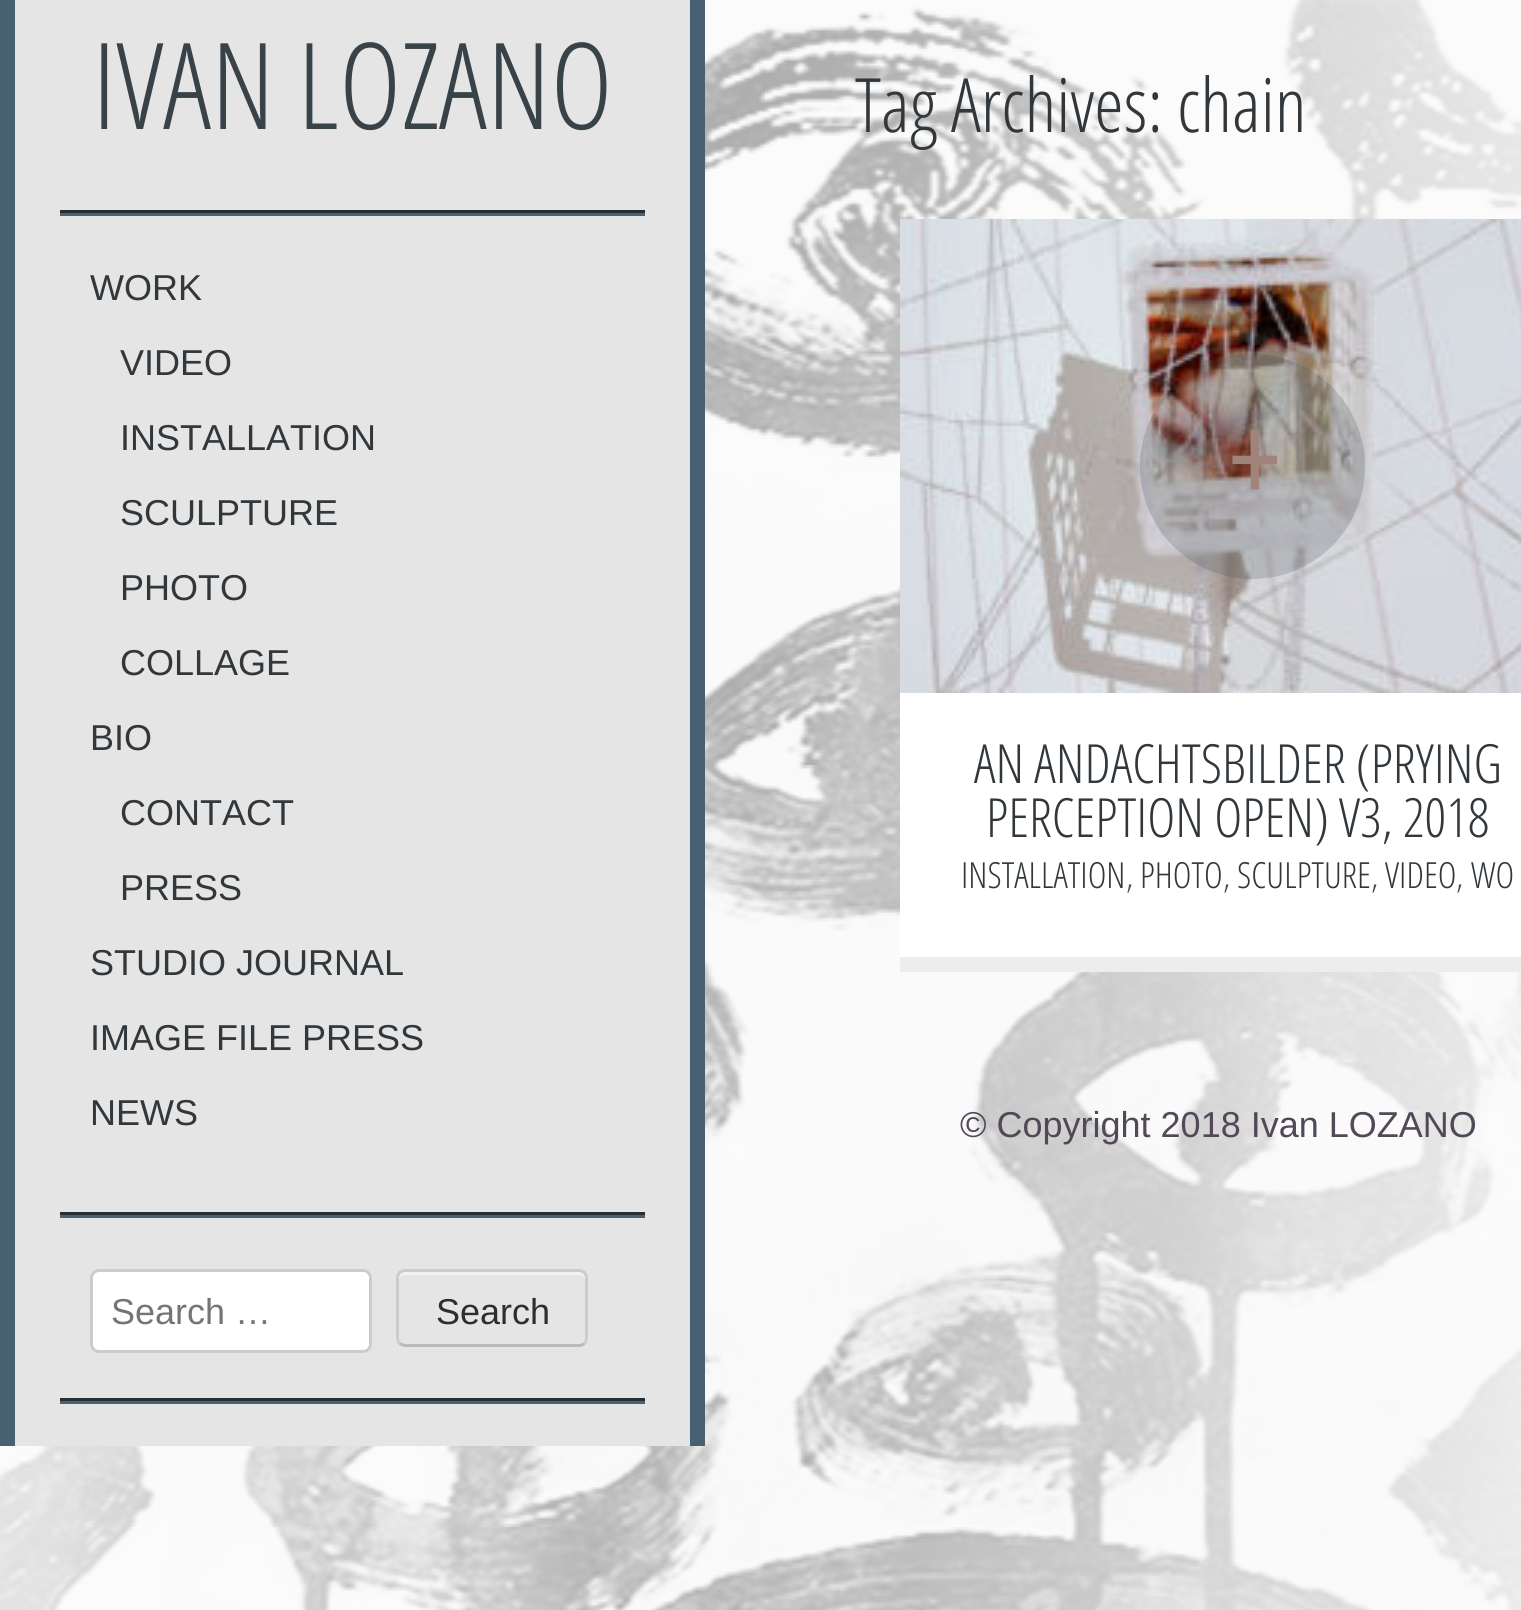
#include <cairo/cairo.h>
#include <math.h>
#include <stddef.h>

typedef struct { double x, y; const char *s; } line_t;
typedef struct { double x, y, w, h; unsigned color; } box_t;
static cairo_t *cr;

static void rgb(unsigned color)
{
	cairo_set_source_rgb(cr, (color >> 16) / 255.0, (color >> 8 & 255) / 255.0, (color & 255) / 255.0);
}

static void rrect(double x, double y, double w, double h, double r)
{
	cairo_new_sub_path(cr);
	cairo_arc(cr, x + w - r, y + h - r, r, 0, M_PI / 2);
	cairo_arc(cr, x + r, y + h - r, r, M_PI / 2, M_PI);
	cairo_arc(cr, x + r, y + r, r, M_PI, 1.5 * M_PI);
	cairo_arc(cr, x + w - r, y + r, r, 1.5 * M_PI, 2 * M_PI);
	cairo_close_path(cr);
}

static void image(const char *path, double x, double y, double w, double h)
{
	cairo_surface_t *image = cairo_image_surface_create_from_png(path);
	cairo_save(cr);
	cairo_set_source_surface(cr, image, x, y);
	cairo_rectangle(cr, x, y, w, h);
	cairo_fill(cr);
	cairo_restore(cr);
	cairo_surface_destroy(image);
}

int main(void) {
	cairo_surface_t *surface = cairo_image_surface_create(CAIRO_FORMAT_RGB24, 1521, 1610);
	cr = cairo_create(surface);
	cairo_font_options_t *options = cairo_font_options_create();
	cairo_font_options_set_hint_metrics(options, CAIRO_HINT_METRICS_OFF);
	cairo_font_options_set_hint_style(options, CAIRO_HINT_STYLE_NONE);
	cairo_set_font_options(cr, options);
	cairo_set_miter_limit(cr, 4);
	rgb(0xf9f9f9);
	cairo_paint(cr);
	image("img/1.png", 0, 0, 1521, 1610);
	{
		static const box_t items[] = {
			{15, 0, 675, 1446, 0xe5e5e5},
			{690, 0, 15, 1446, 0x476172},
			{0, 0, 15, 1446, 0x476172},
			{60, 213, 585, 3, 0x4b6272},
			{60, 210, 585, 3, 0x272f34},
			{60, 1215, 585, 3, 0x4b6272},
			{60, 1212, 585, 3, 0x272f34},
			{60, 1401, 585, 3, 0x4b6272},
			{60, 1398, 585, 3, 0x272f34},
		};
		for (size_t i = 0; i < sizeof items / sizeof *items; i++) {
			rgb(items[i].color);
			cairo_rectangle(cr, items[i].x, items[i].y, items[i].w, items[i].h);
			cairo_fill(cr);
		}
	}
	rgb(0xffffff);
	rrect(91.5, 1270.5, 279, 81, 7.5);
	cairo_fill_preserve(cr);
	rgb(0xcccccc);
	cairo_set_line_width(cr, 3);
	cairo_stroke(cr);
	rgb(0xf2f2f2);
	cairo_new_path(cr);
	cairo_move_to(cr, 405, 1275);
	cairo_line_to(cr, 579, 1275);
	cairo_curve_to(cr, 582, 1275, 585, 1278, 585, 1281);
	cairo_line_to(cr, 585, 1278);
	cairo_curve_to(cr, 585, 1275, 582, 1272, 579, 1272);
	cairo_line_to(cr, 405, 1272);
	cairo_curve_to(cr, 402, 1272, 399, 1275, 399, 1278);
	cairo_line_to(cr, 399, 1281);
	cairo_curve_to(cr, 399, 1278, 402, 1275, 405, 1275);
	cairo_close_path(cr);
	cairo_fill(cr);
	cairo_new_path(cr);
	cairo_move_to(cr, 584.5, 1343.5);
	cairo_curve_to(cr, 583, 1344.5, 581.5, 1345.5, 579.5, 1345.5);
	cairo_line_to(cr, 404.5, 1345.5);
	cairo_line_to(cr, 399.5, 1343.5);
	rgb(0xbbbbbb);
	cairo_stroke(cr);
	cairo_new_path(cr);
	cairo_move_to(cr, 399.5, 1343.5);
	cairo_curve_to(cr, 398.5, 1342, 397.5, 1340, 397.5, 1338);
	cairo_line_to(cr, 397.5, 1278);
	cairo_curve_to(cr, 397.5, 1276, 398.5, 1274, 399.5, 1272.5);
	cairo_curve_to(cr, 401, 1271.5, 403, 1270.5, 405, 1270.5);
	cairo_line_to(cr, 579, 1270.5);
	cairo_curve_to(cr, 581, 1270.5, 583, 1271.5, 584.5, 1272.5);
	cairo_curve_to(cr, 585.5, 1274, 586.5, 1276, 586.5, 1278);
	cairo_line_to(cr, 586.5, 1338);
	cairo_curve_to(cr, 586.5, 1340, 585.5, 1342, 584.5, 1343.5);
	rgb(0xcccccc);
	cairo_stroke(cr);
	rgb(0xffffff);
	cairo_rectangle(cr, 900, 693, 621, 264);
	cairo_fill(cr);
	rgb(0xeceded);
	cairo_rectangle(cr, 900, 957, 621, 15);
	cairo_fill(cr);
	image("img/2.png", 900, 219, 621, 474);
	cairo_set_source_rgba(cr, 0.22, 0.259, 0.286, 0.2);
	cairo_arc(cr, 1252.5, 466.5, 112.5, 0, 2 * M_PI);
	cairo_fill(cr);
	cairo_select_font_face(cr, "Open Sans Condensed Light", CAIRO_FONT_SLANT_NORMAL, CAIRO_FONT_WEIGHT_NORMAL);
	cairo_set_font_size(cr, 120);
	rgb(0x384249);
	cairo_move_to(cr, 92, 129);
	cairo_show_text(cr, "IVAN LOZANO");
	cairo_select_font_face(cr, "Liberation Sans", CAIRO_FONT_SLANT_NORMAL, CAIRO_FONT_WEIGHT_NORMAL);
	cairo_set_font_size(cr, 36);
	rgb(0x31373b);
	{
		static const line_t items[] = {
			{90, 300, "WORK"},
			{120, 375, "VIDEO"},
			{120, 450, "INSTALLATION"},
			{120, 525, "SCULPTURE"},
			{120, 600, "PHOTO"},
			{120, 675, "COLLAGE"},
			{90, 750, "BIO"},
			{120, 825, "CONTACT"},
			{120, 900, "PRESS"},
			{90, 975, "STUDIO JOURNAL"},
			{90, 1050, "IMAGE FILE PRESS"},
			{90, 1125, "NEWS"},
		};
		for (size_t i = 0; i < sizeof items / sizeof *items; i++) {
			cairo_move_to(cr, items[i].x, items[i].y);
			cairo_show_text(cr, items[i].s);
		}
	}
	rgb(0x757575);
	cairo_move_to(cr, 111, 1324);
	cairo_show_text(cr, "Search …");
	rgb(0x2e2e2e);
	cairo_move_to(cr, 436, 1324);
	cairo_show_text(cr, "Search");
	cairo_select_font_face(cr, "Open Sans Condensed Light", CAIRO_FONT_SLANT_NORMAL, CAIRO_FONT_WEIGHT_NORMAL);
	cairo_set_font_size(cr, 75);
	rgb(0x31373b);
	cairo_move_to(cr, 855, 132);
	cairo_show_text(cr, "Tag Archives: chain");
	cairo_select_font_face(cr, "Open Sans Condensed", CAIRO_FONT_SLANT_NORMAL, CAIRO_FONT_WEIGHT_BOLD);
	cairo_set_font_size(cr, 120);
	rgb(0xa0847c);
	cairo_move_to(cr, 1229, 504);
	cairo_show_text(cr, "+");
	cairo_select_font_face(cr, "Open Sans Condensed Light", CAIRO_FONT_SLANT_NORMAL, CAIRO_FONT_WEIGHT_NORMAL);
	cairo_set_font_size(cr, 54);
	rgb(0x31373b);
	cairo_move_to(cr, 974, 783);
	cairo_show_text(cr, "AN ANDACHTSBILDER (PRYING");
	cairo_move_to(cr, 986, 837);
	cairo_show_text(cr, "PERCEPTION OPEN) V3, 2018");
	cairo_set_font_size(cr, 36);
	cairo_move_to(cr, 961, 888);
	cairo_show_text(cr, "INSTALLATION");
	rgb(0x524858);
	cairo_move_to(cr, 1126, 888);
	cairo_show_text(cr, ",");
	rgb(0x31373b);
	cairo_move_to(cr, 1140, 888);
	cairo_show_text(cr, "PHOTO");
	rgb(0x524858);
	cairo_move_to(cr, 1223, 888);
	cairo_show_text(cr, ",");
	rgb(0x31373b);
	cairo_move_to(cr, 1237, 888);
	cairo_show_text(cr, "SCULPTURE");
	rgb(0x524858);
	cairo_move_to(cr, 1371, 888);
	cairo_show_text(cr, ",");
	rgb(0x31373b);
	cairo_move_to(cr, 1385, 888);
	cairo_show_text(cr, "VIDEO");
	rgb(0x524858);
	cairo_move_to(cr, 1456, 888);
	cairo_show_text(cr, ",");
	rgb(0x31373b);
	cairo_move_to(cr, 1471, 888);
	cairo_show_text(cr, "WO");
	cairo_select_font_face(cr, "Liberation Sans", CAIRO_FONT_SLANT_NORMAL, CAIRO_FONT_WEIGHT_NORMAL);
	rgb(0x524858);
	cairo_move_to(cr, 960, 1137);
	cairo_show_text(cr, "© Copyright 2018 Ivan LOZANO");
	cairo_surface_write_to_png(surface, "page.png");
	cairo_font_options_destroy(options);
	cairo_destroy(cr);
	cairo_surface_destroy(surface);
	return 0;
}
